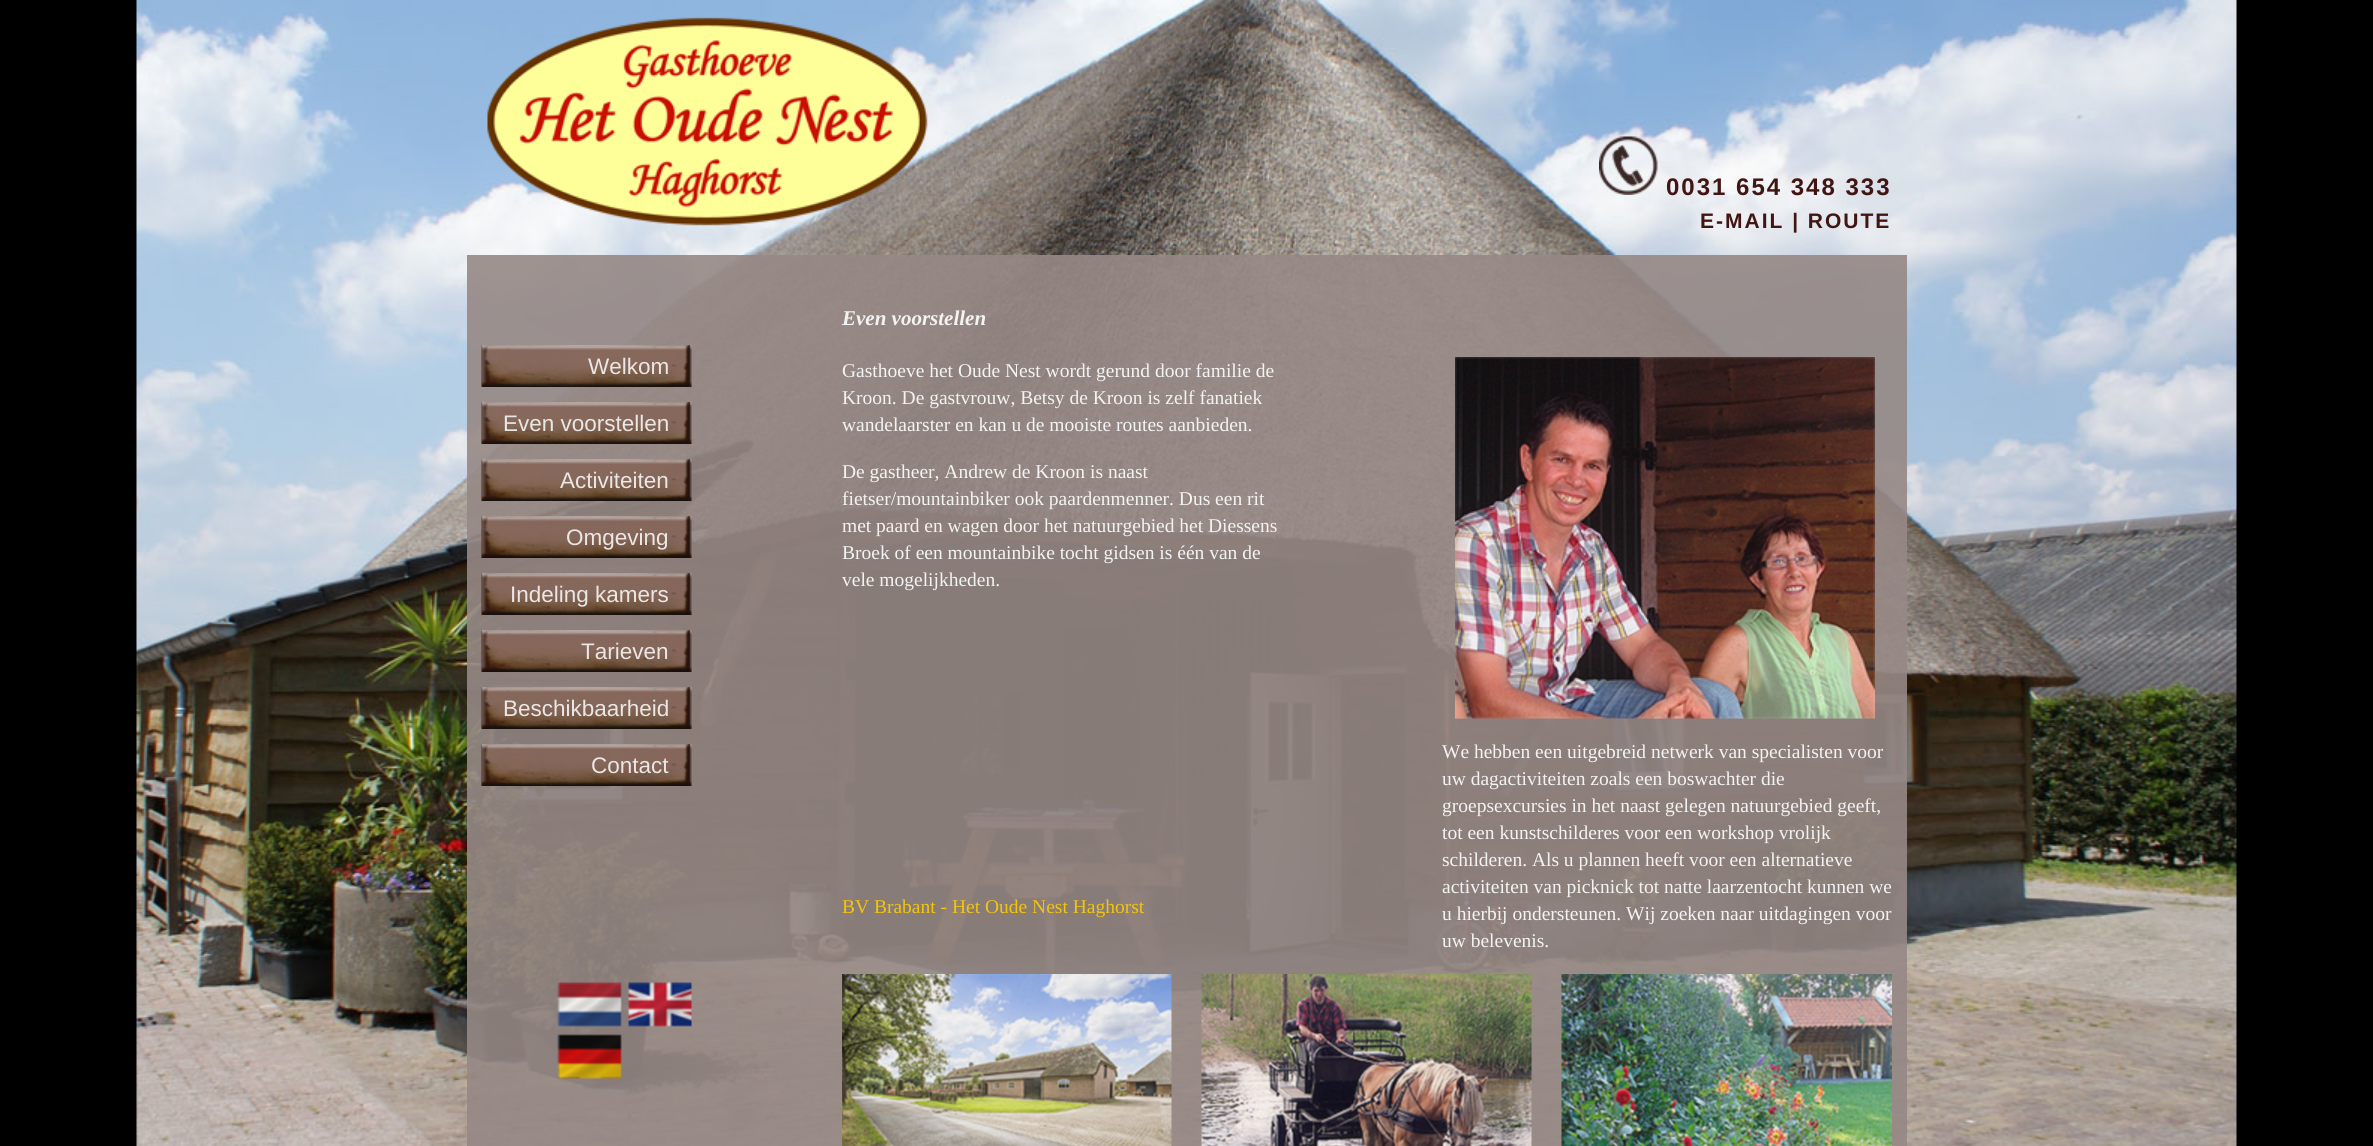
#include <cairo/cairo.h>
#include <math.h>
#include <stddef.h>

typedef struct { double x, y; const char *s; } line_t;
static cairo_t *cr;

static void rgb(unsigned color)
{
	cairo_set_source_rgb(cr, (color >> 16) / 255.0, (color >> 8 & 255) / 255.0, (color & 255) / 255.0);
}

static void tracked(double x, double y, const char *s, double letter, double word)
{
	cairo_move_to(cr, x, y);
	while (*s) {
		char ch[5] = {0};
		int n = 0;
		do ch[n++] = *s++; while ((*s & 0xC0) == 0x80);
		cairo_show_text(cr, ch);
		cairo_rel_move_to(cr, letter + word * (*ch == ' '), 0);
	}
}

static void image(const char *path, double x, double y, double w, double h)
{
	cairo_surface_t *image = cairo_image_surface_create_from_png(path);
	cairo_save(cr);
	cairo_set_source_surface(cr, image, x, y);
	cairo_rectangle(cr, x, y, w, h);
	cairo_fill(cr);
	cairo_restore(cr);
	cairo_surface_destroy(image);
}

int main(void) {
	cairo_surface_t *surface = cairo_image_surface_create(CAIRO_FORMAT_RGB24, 2373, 1146);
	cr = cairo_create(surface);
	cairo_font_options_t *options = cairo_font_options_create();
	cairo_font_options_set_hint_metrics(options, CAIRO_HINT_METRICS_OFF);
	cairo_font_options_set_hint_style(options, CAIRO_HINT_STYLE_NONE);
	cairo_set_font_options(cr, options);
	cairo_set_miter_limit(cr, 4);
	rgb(0x000000);
	cairo_paint(cr);
	image("img/1.png", 136, 0, 2101, 1146);
	image("img/2.png", 487, 17, 441, 209);
	image("img/3.png", 1599, 136, 59, 59);
	cairo_set_source_rgba(cr, 0.588, 0.537, 0.525, 0.9);
	cairo_rectangle(cr, 467, 255, 1440, 719);
	cairo_fill(cr);
	image("img/4.png", 481, 345, 211, 42);
	image("img/5.png", 481, 402, 211, 42);
	image("img/6.png", 481, 459, 211, 42);
	image("img/7.png", 481, 516, 211, 42);
	image("img/8.png", 481, 573, 211, 42);
	image("img/9.png", 481, 630, 211, 42);
	image("img/10.png", 481, 687, 211, 42);
	image("img/11.png", 481, 744, 211, 42);
	image("img/12.png", 1455, 357, 420, 362);
	cairo_rectangle(cr, 467, 974, 1440, 172);
	cairo_fill(cr);
	image("img/13.png", 557, 982, 65, 45);
	image("img/14.png", 628, 982, 64, 45);
	image("img/15.png", 557, 1034, 65, 45);
	image("img/16.png", 842, 974, 330, 172);
	image("img/17.png", 1201, 974, 331, 172);
	image("img/18.png", 1561, 974, 331, 172);
	cairo_select_font_face(cr, "Liberation Sans", CAIRO_FONT_SLANT_NORMAL, CAIRO_FONT_WEIGHT_BOLD);
	cairo_set_font_size(cr, 24);
	rgb(0x411512);
	tracked(1666, 195, "0031 654 348 333", 2, 0);
	cairo_set_font_size(cr, 21);
	tracked(1700, 228, "E-MAIL | ROUTE", 2, 0);
	cairo_select_font_face(cr, "Liberation Sans", CAIRO_FONT_SLANT_NORMAL, CAIRO_FONT_WEIGHT_NORMAL);
	cairo_set_font_size(cr, 22.5);
	rgb(0xeae7e5);
	{
		static const line_t items[] = {
			{588, 374, "Welkom"},
			{503, 431, "Even voorstellen"},
			{560, 488, "Activiteiten"},
			{566, 545, "Omgeving"},
			{510, 602, "Indeling kamers"},
			{581, 659, "Tarieven"},
			{503, 716, "Beschikbaarheid"},
			{591, 773, "Contact"},
		};
		for (size_t i = 0; i < sizeof items / sizeof *items; i++) {
			cairo_move_to(cr, items[i].x, items[i].y);
			cairo_show_text(cr, items[i].s);
		}
	}
	cairo_select_font_face(cr, "Liberation Serif", CAIRO_FONT_SLANT_ITALIC, CAIRO_FONT_WEIGHT_BOLD);
	cairo_set_font_size(cr, 21);
	rgb(0xf4f3f3);
	cairo_move_to(cr, 842, 325);
	cairo_show_text(cr, "Even voorstellen");
	cairo_select_font_face(cr, "Liberation Serif", CAIRO_FONT_SLANT_NORMAL, CAIRO_FONT_WEIGHT_NORMAL);
	cairo_set_font_size(cr, 19.5);
	{
		static const line_t items[] = {
			{842, 377, "Gasthoeve het Oude Nest wordt gerund door familie de"},
			{842, 404, "Kroon. De gastvrouw, Betsy de Kroon is zelf fanatiek"},
			{842, 431, "wandelaarster en kan u de mooiste routes aanbieden."},
			{842, 478, "De gastheer, Andrew de Kroon is naast"},
			{842, 505, "fietser/mountainbiker ook paardenmenner. Dus een rit"},
			{842, 532, "met paard en wagen door het natuurgebied het Diessens"},
			{842, 559, "Broek of een mountainbike tocht gidsen is één van de"},
			{842, 586, "vele mogelijkheden."},
		};
		for (size_t i = 0; i < sizeof items / sizeof *items; i++) {
			cairo_move_to(cr, items[i].x, items[i].y);
			cairo_show_text(cr, items[i].s);
		}
	}
	rgb(0xf3c40c);
	cairo_move_to(cr, 842, 913);
	cairo_show_text(cr, "BV Brabant - Het Oude Nest Haghorst");
	rgb(0xf4f3f3);
	{
		static const line_t items[] = {
			{1442, 758, "We hebben een uitgebreid netwerk van specialisten voor"},
			{1442, 785, "uw dagactiviteiten zoals een boswachter die"},
			{1442, 812, "groepsexcursies in het naast gelegen natuurgebied geeft,"},
			{1442, 839, "tot een kunstschilderes voor een workshop vrolijk"},
			{1442, 866, "schilderen. Als u plannen heeft voor een alternatieve"},
			{1442, 893, "activiteiten van picknick tot natte laarzentocht kunnen we"},
			{1442, 920, "u hierbij ondersteunen. Wij zoeken naar uitdagingen voor"},
			{1442, 947, "uw belevenis."},
		};
		for (size_t i = 0; i < sizeof items / sizeof *items; i++) {
			cairo_move_to(cr, items[i].x, items[i].y);
			cairo_show_text(cr, items[i].s);
		}
	}
	cairo_surface_write_to_png(surface, "page.png");
	cairo_font_options_destroy(options);
	cairo_destroy(cr);
	cairo_surface_destroy(surface);
	return 0;
}
